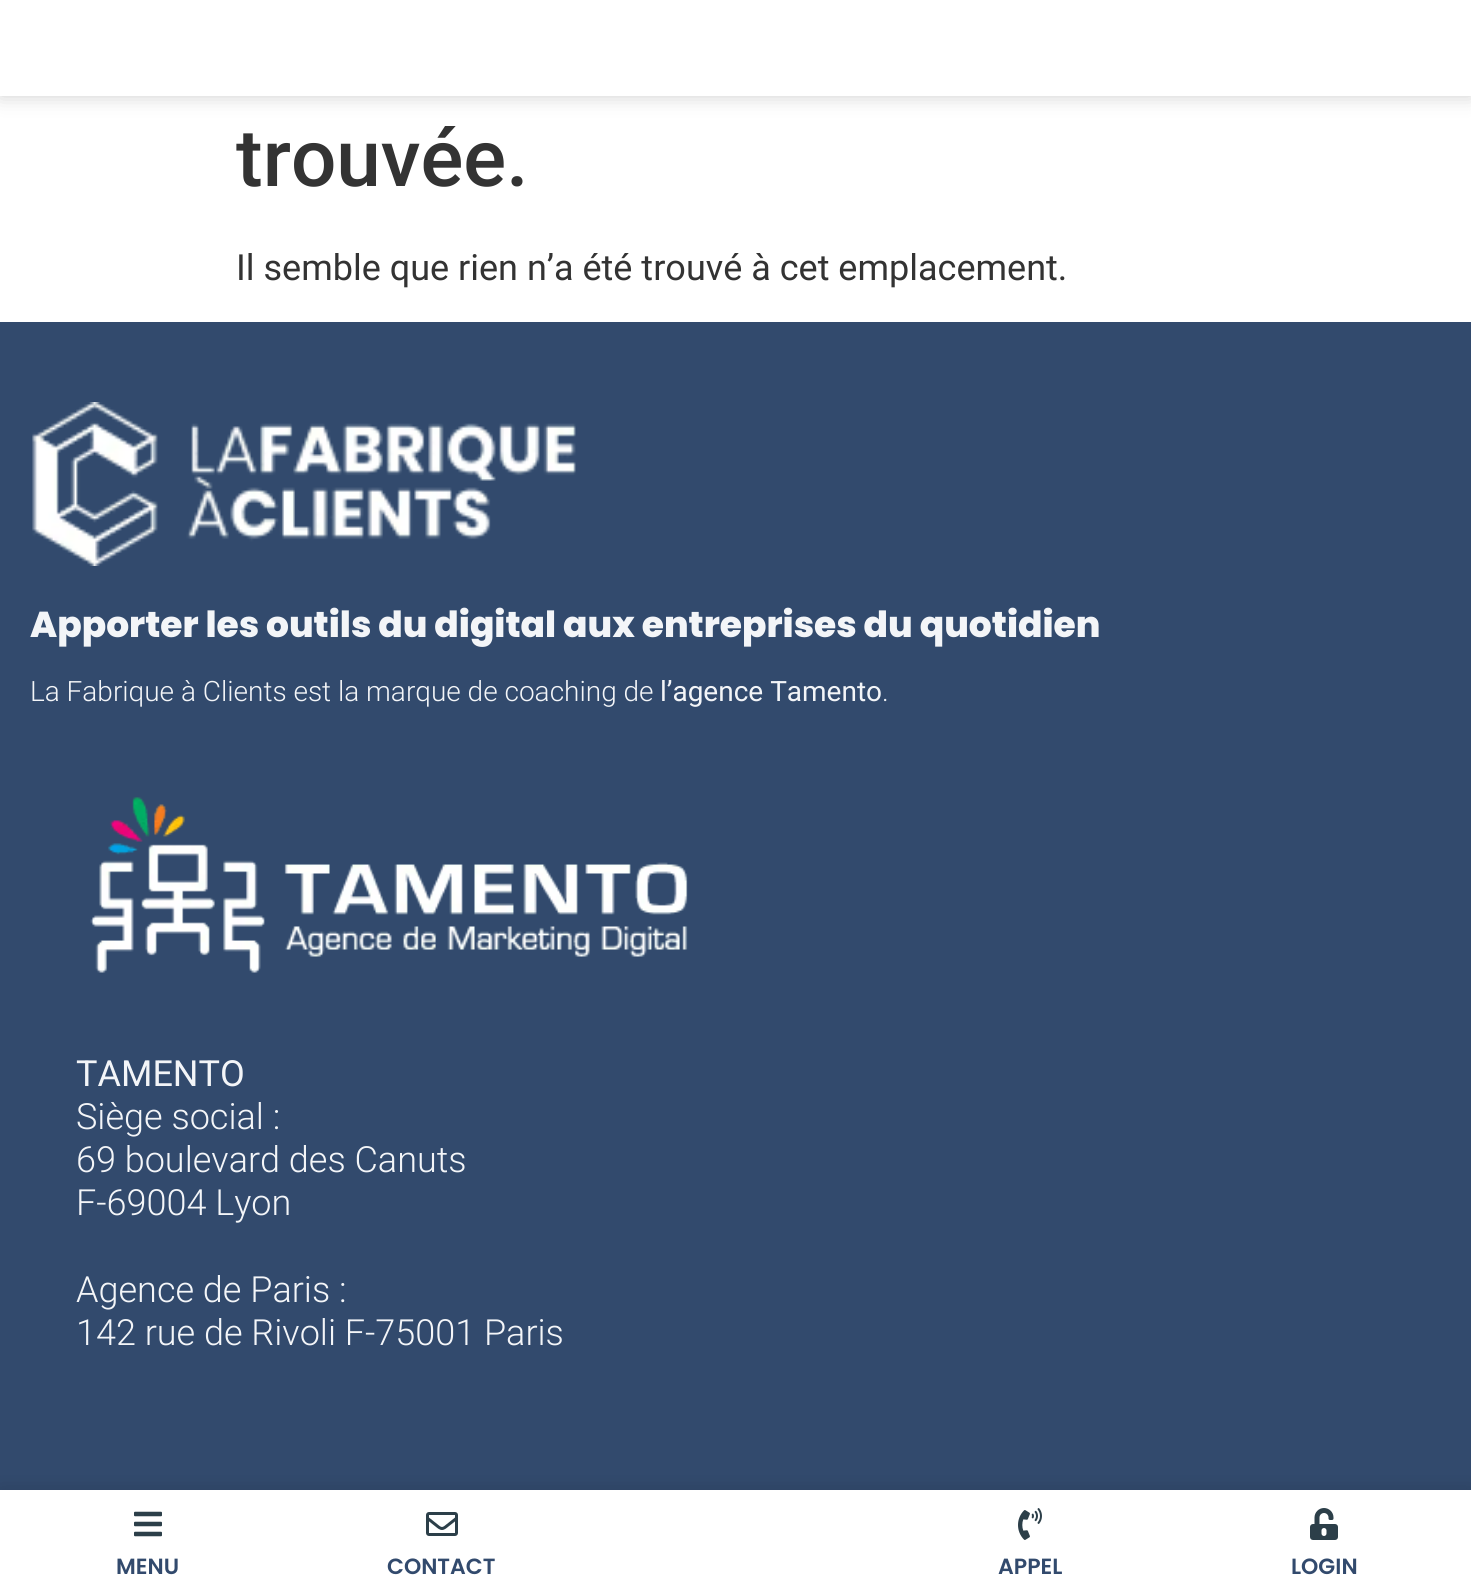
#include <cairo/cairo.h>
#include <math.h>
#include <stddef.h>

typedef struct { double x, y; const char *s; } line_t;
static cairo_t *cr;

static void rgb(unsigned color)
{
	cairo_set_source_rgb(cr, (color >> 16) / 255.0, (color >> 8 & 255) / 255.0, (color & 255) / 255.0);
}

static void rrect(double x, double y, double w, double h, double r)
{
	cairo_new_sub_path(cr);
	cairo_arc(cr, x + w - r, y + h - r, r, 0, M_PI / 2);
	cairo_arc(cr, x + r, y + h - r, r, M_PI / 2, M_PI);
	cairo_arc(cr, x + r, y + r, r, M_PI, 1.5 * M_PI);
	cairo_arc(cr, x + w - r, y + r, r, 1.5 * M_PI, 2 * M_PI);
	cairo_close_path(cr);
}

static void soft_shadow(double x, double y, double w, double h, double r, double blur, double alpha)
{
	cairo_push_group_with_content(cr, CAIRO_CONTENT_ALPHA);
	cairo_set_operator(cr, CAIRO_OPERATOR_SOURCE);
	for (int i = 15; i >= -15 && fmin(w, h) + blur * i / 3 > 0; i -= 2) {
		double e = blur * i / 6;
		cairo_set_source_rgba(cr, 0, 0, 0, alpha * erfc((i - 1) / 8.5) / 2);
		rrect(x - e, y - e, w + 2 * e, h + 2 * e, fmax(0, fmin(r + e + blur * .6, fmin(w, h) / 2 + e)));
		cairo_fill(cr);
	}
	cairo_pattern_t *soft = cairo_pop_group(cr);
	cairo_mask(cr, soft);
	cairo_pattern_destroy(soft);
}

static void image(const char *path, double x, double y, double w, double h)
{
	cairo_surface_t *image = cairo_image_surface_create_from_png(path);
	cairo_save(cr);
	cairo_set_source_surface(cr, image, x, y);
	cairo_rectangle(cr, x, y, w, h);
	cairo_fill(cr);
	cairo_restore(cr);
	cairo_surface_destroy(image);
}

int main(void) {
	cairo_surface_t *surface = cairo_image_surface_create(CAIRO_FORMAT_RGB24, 1471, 1587);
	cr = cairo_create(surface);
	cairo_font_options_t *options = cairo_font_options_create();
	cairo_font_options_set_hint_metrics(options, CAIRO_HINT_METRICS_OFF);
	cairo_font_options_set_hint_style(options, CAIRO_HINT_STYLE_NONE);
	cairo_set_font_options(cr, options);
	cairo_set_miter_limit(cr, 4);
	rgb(0xffffff);
	cairo_paint(cr);
	rgb(0x324a6d);
	cairo_rectangle(cr, 0, 322, 1471, 1168);
	cairo_fill(cr);
	image("img/1.png", 32, 402, 544, 164);
	image("img/2.png", 90, 797, 598, 176);
	rgb(0x000000);
	soft_shadow(0, 0, 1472, 96, 0, 10, 0.19);
	rgb(0xffffff);
	cairo_rectangle(cr, 0, 0, 1471, 96);
	cairo_fill(cr);
	rgb(0x000000);
	soft_shadow(0, 1490, 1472, 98, 0, 10, 0.14);
	rgb(0xffffff);
	cairo_rectangle(cr, 0, 1490, 1471, 97);
	cairo_fill(cr);
	image("img/3.png", 134, 1511, 28, 26);
	image("img/4.png", 426, 1512, 32, 24);
	image("img/5.png", 1018, 1508, 24, 32);
	image("img/6.png", 1310, 1508, 28, 32);
	cairo_select_font_face(cr, "Roboto Medium", CAIRO_FONT_SLANT_NORMAL, CAIRO_FONT_WEIGHT_NORMAL);
	cairo_set_font_size(cr, 80);
	rgb(0x333333);
	cairo_move_to(cr, 236, 186);
	cairo_show_text(cr, "trouvée.");
	cairo_select_font_face(cr, "Roboto", CAIRO_FONT_SLANT_NORMAL, CAIRO_FONT_WEIGHT_NORMAL);
	cairo_set_font_size(cr, 36);
	cairo_move_to(cr, 236, 280);
	cairo_show_text(cr, "Il semble que rien n’a été trouvé à cet emplacement.");
	cairo_select_font_face(cr, "Poppins ExtraBold", CAIRO_FONT_SLANT_NORMAL, CAIRO_FONT_WEIGHT_NORMAL);
	rgb(0xf3f5f8);
	cairo_move_to(cr, 30, 637);
	cairo_show_text(cr, "Apporter les outils du digital aux entreprises du quotidien");
	cairo_select_font_face(cr, "Roboto Light", CAIRO_FONT_SLANT_NORMAL, CAIRO_FONT_WEIGHT_NORMAL);
	cairo_set_font_size(cr, 28);
	cairo_move_to(cr, 30, 701);
	cairo_show_text(cr, "La Fabrique à Clients est la marque de coaching de");
	cairo_select_font_face(cr, "Roboto", CAIRO_FONT_SLANT_NORMAL, CAIRO_FONT_WEIGHT_NORMAL);
	cairo_move_to(cr, 660, 701);
	cairo_show_text(cr, "l’agence Tamento");
	cairo_select_font_face(cr, "Roboto Light", CAIRO_FONT_SLANT_NORMAL, CAIRO_FONT_WEIGHT_NORMAL);
	cairo_move_to(cr, 882, 701);
	cairo_show_text(cr, ".");
	cairo_select_font_face(cr, "Roboto", CAIRO_FONT_SLANT_NORMAL, CAIRO_FONT_WEIGHT_NORMAL);
	cairo_set_font_size(cr, 36);
	cairo_move_to(cr, 76, 1086);
	cairo_show_text(cr, "TAMENTO");
	cairo_select_font_face(cr, "Roboto Light", CAIRO_FONT_SLANT_NORMAL, CAIRO_FONT_WEIGHT_NORMAL);
	{
		static const line_t items[] = {
			{76, 1129, "Siège social :"},
			{76, 1172, "69 boulevard des Canuts"},
			{76, 1215, "F-69004 Lyon"},
			{76, 1302, "Agence de Paris :"},
			{76, 1345, "142 rue de Rivoli F-75001 Paris"},
		};
		for (size_t i = 0; i < sizeof items / sizeof *items; i++) {
			cairo_move_to(cr, items[i].x, items[i].y);
			cairo_show_text(cr, items[i].s);
		}
	}
	cairo_select_font_face(cr, "Poppins SemiBold", CAIRO_FONT_SLANT_NORMAL, CAIRO_FONT_WEIGHT_NORMAL);
	cairo_set_font_size(cr, 22);
	rgb(0x324a6d);
	{
		static const line_t items[] = {
			{116, 1574, "MENU"},
			{387, 1574, "CONTACT"},
			{998, 1574, "APPEL"},
			{1291, 1574, "LOGIN"},
		};
		for (size_t i = 0; i < sizeof items / sizeof *items; i++) {
			cairo_move_to(cr, items[i].x, items[i].y);
			cairo_show_text(cr, items[i].s);
		}
	}
	cairo_surface_write_to_png(surface, "page.png");
	cairo_font_options_destroy(options);
	cairo_destroy(cr);
	cairo_surface_destroy(surface);
	return 0;
}
